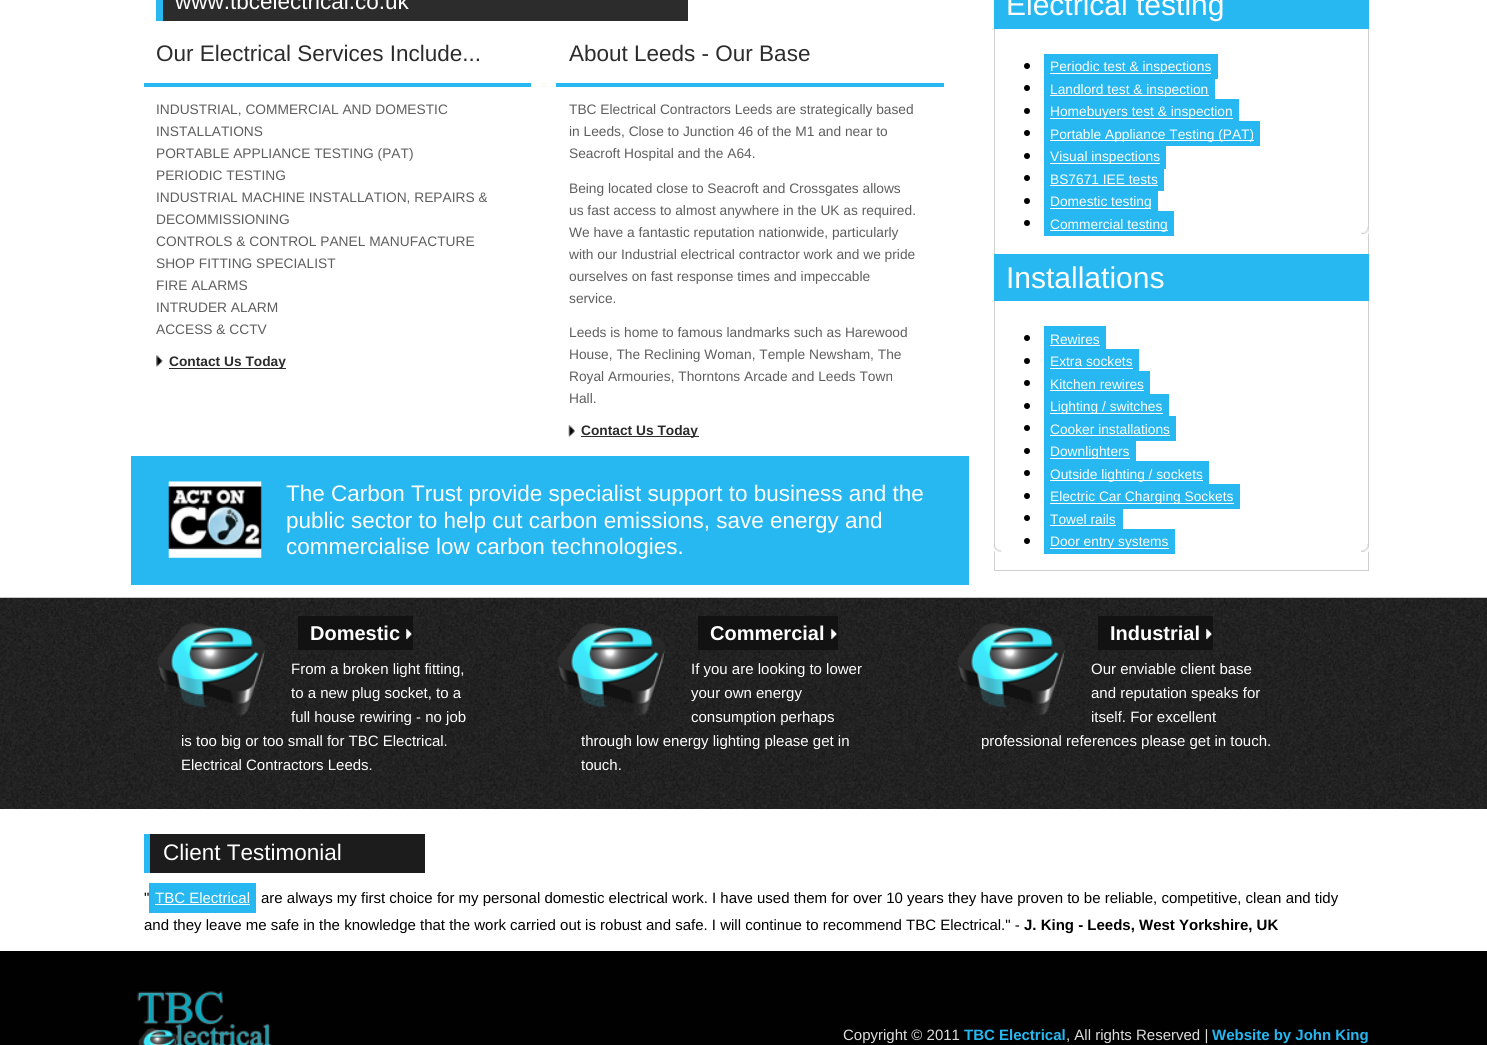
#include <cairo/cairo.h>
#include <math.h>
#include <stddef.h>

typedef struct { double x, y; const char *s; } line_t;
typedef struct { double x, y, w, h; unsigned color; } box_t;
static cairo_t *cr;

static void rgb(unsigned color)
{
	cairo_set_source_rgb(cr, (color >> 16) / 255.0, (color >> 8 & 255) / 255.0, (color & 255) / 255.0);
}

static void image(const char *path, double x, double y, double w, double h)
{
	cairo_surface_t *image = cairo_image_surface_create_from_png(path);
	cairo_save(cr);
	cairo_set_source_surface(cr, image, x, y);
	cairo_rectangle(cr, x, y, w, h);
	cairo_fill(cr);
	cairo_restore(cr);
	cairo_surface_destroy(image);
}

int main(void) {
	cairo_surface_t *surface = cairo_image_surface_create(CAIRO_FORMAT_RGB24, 1487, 1045);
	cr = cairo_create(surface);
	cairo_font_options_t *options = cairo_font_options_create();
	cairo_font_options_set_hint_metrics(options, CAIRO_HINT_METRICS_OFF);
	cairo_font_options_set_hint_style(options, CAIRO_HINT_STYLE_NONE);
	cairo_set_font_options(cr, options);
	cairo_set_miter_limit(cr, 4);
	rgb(0xffffff);
	cairo_paint(cr);
	{
		static const box_t items[] = {
			{163, 0, 525, 21, 0x2c2c2c},
			{156, 0, 7, 21, 0x27b8f1},
			{144, 83, 387, 4, 0x27b8f1},
		};
		for (size_t i = 0; i < sizeof items / sizeof *items; i++) {
			rgb(items[i].color);
			cairo_rectangle(cr, items[i].x, items[i].y, items[i].w, items[i].h);
			cairo_fill(cr);
		}
	}
	image("img/1.png", 156, 355, 7, 12);
	rgb(0x2c2c2c);
	cairo_rectangle(cr, 169, 368, 117, 1);
	cairo_fill(cr);
	rgb(0x27b8f1);
	cairo_rectangle(cr, 556, 83, 388, 4);
	cairo_fill(cr);
	image("img/2.png", 568, 425, 7, 12);
	rgb(0x2c2c2c);
	cairo_rectangle(cr, 581, 436, 118, 1);
	cairo_fill(cr);
	rgb(0x27b8f1);
	cairo_rectangle(cr, 131, 456, 838, 129);
	cairo_fill(cr);
	image("img/3.png", 168, 481, 94, 77);
	cairo_rectangle(cr, 994.5, -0.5, 374, 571);
	rgb(0xd0d0d0);
	cairo_set_line_width(cr, 1);
	cairo_stroke(cr);
	image("img/4.png", 993, 544, 9, 8);
	image("img/5.png", 1361, 544, 8, 8);
	image("img/6.png", 1361, 548, 8, 4);
	image("img/7.png", 1361, 226, 8, 8);
	rgb(0x27b8f1);
	cairo_rectangle(cr, 994, 0, 375, 29);
	cairo_fill(cr);
	rgb(0x000000);
	cairo_arc(cr, 1027, 66, 3, 0, 2 * M_PI);
	cairo_fill(cr);
	rgb(0x27b8f1);
	cairo_rectangle(cr, 1044, 54, 174, 25);
	cairo_fill(cr);
	rgb(0xffffff);
	cairo_rectangle(cr, 1050, 73, 161, 1);
	cairo_fill(cr);
	rgb(0x000000);
	cairo_arc(cr, 1027, 88, 3, 0, 2 * M_PI);
	cairo_fill(cr);
	rgb(0x27b8f1);
	cairo_rectangle(cr, 1044, 79, 171, 20);
	cairo_fill(cr);
	rgb(0xffffff);
	cairo_rectangle(cr, 1050, 95, 159, 1);
	cairo_fill(cr);
	rgb(0x000000);
	cairo_arc(cr, 1027, 111, 3, 0, 2 * M_PI);
	cairo_fill(cr);
	rgb(0x27b8f1);
	cairo_rectangle(cr, 1044, 99, 195, 22);
	cairo_fill(cr);
	rgb(0xffffff);
	cairo_rectangle(cr, 1050, 118, 183, 1);
	cairo_fill(cr);
	rgb(0x000000);
	cairo_arc(cr, 1027, 133, 3, 0, 2 * M_PI);
	cairo_fill(cr);
	rgb(0x27b8f1);
	cairo_rectangle(cr, 1044, 121, 216, 25);
	cairo_fill(cr);
	rgb(0xffffff);
	cairo_rectangle(cr, 1050, 140, 204, 1);
	cairo_fill(cr);
	rgb(0x000000);
	cairo_arc(cr, 1027, 156, 3, 0, 2 * M_PI);
	cairo_fill(cr);
	rgb(0x27b8f1);
	cairo_rectangle(cr, 1044, 146, 122, 23);
	cairo_fill(cr);
	rgb(0xffffff);
	cairo_rectangle(cr, 1050, 163, 110, 1);
	cairo_fill(cr);
	rgb(0x000000);
	cairo_arc(cr, 1027, 178, 3, 0, 2 * M_PI);
	cairo_fill(cr);
	rgb(0x27b8f1);
	cairo_rectangle(cr, 1044, 169, 120, 22);
	cairo_fill(cr);
	rgb(0xffffff);
	cairo_rectangle(cr, 1050, 185, 108, 1);
	cairo_fill(cr);
	rgb(0x000000);
	cairo_arc(cr, 1027, 201, 3, 0, 2 * M_PI);
	cairo_fill(cr);
	rgb(0x27b8f1);
	cairo_rectangle(cr, 1044, 191, 114, 20);
	cairo_fill(cr);
	rgb(0xffffff);
	cairo_rectangle(cr, 1050, 208, 101, 1);
	cairo_fill(cr);
	rgb(0x000000);
	cairo_arc(cr, 1027, 223, 3, 0, 2 * M_PI);
	cairo_fill(cr);
	rgb(0x27b8f1);
	cairo_rectangle(cr, 1044, 211, 130, 25);
	cairo_fill(cr);
	rgb(0xffffff);
	cairo_rectangle(cr, 1050, 230, 118, 1);
	cairo_fill(cr);
	image("img/8.png", 1361, 551, 8, 1);
	rgb(0x27b8f1);
	cairo_rectangle(cr, 994, 254, 375, 47);
	cairo_fill(cr);
	rgb(0x000000);
	cairo_arc(cr, 1027, 338, 3, 0, 2 * M_PI);
	cairo_fill(cr);
	rgb(0x27b8f1);
	cairo_rectangle(cr, 1044, 326, 62, 23);
	cairo_fill(cr);
	rgb(0xffffff);
	cairo_rectangle(cr, 1050, 345, 50, 1);
	cairo_fill(cr);
	rgb(0x000000);
	cairo_arc(cr, 1027, 361, 3, 0, 2 * M_PI);
	cairo_fill(cr);
	rgb(0x27b8f1);
	cairo_rectangle(cr, 1044, 349, 95, 22);
	cairo_fill(cr);
	rgb(0xffffff);
	cairo_rectangle(cr, 1050, 368, 83, 1);
	cairo_fill(cr);
	rgb(0x000000);
	cairo_arc(cr, 1027, 383, 3, 0, 2 * M_PI);
	cairo_fill(cr);
	rgb(0x27b8f1);
	cairo_rectangle(cr, 1044, 371, 106, 23);
	cairo_fill(cr);
	rgb(0xffffff);
	cairo_rectangle(cr, 1050, 390, 94, 1);
	cairo_fill(cr);
	rgb(0x000000);
	cairo_arc(cr, 1027, 406, 3, 0, 2 * M_PI);
	cairo_fill(cr);
	rgb(0x27b8f1);
	cairo_rectangle(cr, 1044, 394, 125, 22);
	cairo_fill(cr);
	rgb(0xffffff);
	cairo_rectangle(cr, 1050, 413, 113, 1);
	cairo_fill(cr);
	rgb(0x000000);
	cairo_arc(cr, 1027, 428, 3, 0, 2 * M_PI);
	cairo_fill(cr);
	rgb(0x27b8f1);
	cairo_rectangle(cr, 1044, 416, 132, 25);
	cairo_fill(cr);
	rgb(0xffffff);
	cairo_rectangle(cr, 1050, 435, 120, 1);
	cairo_fill(cr);
	rgb(0x000000);
	cairo_arc(cr, 1027, 451, 3, 0, 2 * M_PI);
	cairo_fill(cr);
	rgb(0x27b8f1);
	cairo_rectangle(cr, 1044, 441, 92, 20);
	cairo_fill(cr);
	rgb(0xffffff);
	cairo_rectangle(cr, 1050, 458, 80, 1);
	cairo_fill(cr);
	rgb(0x000000);
	cairo_arc(cr, 1027, 473, 3, 0, 2 * M_PI);
	cairo_fill(cr);
	rgb(0x27b8f1);
	cairo_rectangle(cr, 1044, 461, 165, 23);
	cairo_fill(cr);
	rgb(0xffffff);
	cairo_rectangle(cr, 1050, 480, 153, 1);
	cairo_fill(cr);
	rgb(0x000000);
	cairo_arc(cr, 1027, 496, 3, 0, 2 * M_PI);
	cairo_fill(cr);
	rgb(0x27b8f1);
	cairo_rectangle(cr, 1044, 484, 196, 25);
	cairo_fill(cr);
	rgb(0xffffff);
	cairo_rectangle(cr, 1050, 503, 184, 1);
	cairo_fill(cr);
	rgb(0x000000);
	cairo_arc(cr, 1027, 518, 3, 0, 2 * M_PI);
	cairo_fill(cr);
	rgb(0x27b8f1);
	cairo_rectangle(cr, 1044, 509, 79, 20);
	cairo_fill(cr);
	rgb(0xffffff);
	cairo_rectangle(cr, 1050, 525, 66, 1);
	cairo_fill(cr);
	rgb(0x000000);
	cairo_arc(cr, 1027, 541, 3, 0, 2 * M_PI);
	cairo_fill(cr);
	rgb(0x27b8f1);
	cairo_rectangle(cr, 1044, 529, 131, 25);
	cairo_fill(cr);
	rgb(0xffffff);
	cairo_rectangle(cr, 1050, 548, 119, 1);
	cairo_fill(cr);
	image("img/9.png", 0, 597, 1487, 212);
	image("img/10.png", 157, 622, 108, 94);
	rgb(0x121212);
	cairo_rectangle(cr, 298, 616, 115, 34);
	cairo_fill(cr);
	image("img/11.png", 406, 628, 6, 12);
	image("img/12.png", 557, 622, 108, 94);
	cairo_rectangle(cr, 698, 616, 140, 34);
	cairo_fill(cr);
	image("img/11.png", 831, 628, 6, 12);
	image("img/13.png", 957, 622, 108, 94);
	cairo_rectangle(cr, 1098, 616, 115, 34);
	cairo_fill(cr);
	image("img/11.png", 1206, 628, 6, 12);
	{
		static const box_t items[] = {
			{150, 834, 275, 39, 0x1c1c1c},
			{144, 834, 6, 39, 0x27b8f1},
			{149, 883, 107, 30, 0x27b8f1},
			{155, 904, 95, 1, 0xffffff},
			{0, 951, 1487, 94, 0x010101},
		};
		for (size_t i = 0; i < sizeof items / sizeof *items; i++) {
			rgb(items[i].color);
			cairo_rectangle(cr, items[i].x, items[i].y, items[i].w, items[i].h);
			cairo_fill(cr);
		}
	}
	image("img/14.png", 137, 991, 135, 54);
	cairo_select_font_face(cr, "Liberation Sans", CAIRO_FONT_SLANT_NORMAL, CAIRO_FONT_WEIGHT_NORMAL);
	cairo_set_font_size(cr, 22.5);
	rgb(0xffffff);
	cairo_move_to(cr, 175, 9);
	cairo_show_text(cr, "www.tbcelectrical.co.uk");
	rgb(0x2c2c2c);
	cairo_move_to(cr, 156, 61);
	cairo_show_text(cr, "Our Electrical Services Include...");
	cairo_set_font_size(cr, 13.75);
	rgb(0x5e5e5e);
	{
		static const line_t items[] = {
			{156, 114, "INDUSTRIAL, COMMERCIAL AND DOMESTIC"},
			{156, 136, "INSTALLATIONS"},
			{156, 158, "PORTABLE APPLIANCE TESTING (PAT)"},
			{156, 180, "PERIODIC TESTING"},
			{156, 202, "INDUSTRIAL MACHINE INSTALLATION, REPAIRS &"},
			{156, 224, "DECOMMISSIONING"},
			{156, 246, "CONTROLS & CONTROL PANEL MANUFACTURE"},
			{156, 268, "SHOP FITTING SPECIALIST"},
			{156, 290, "FIRE ALARMS"},
			{156, 312, "INTRUDER ALARM"},
			{156, 334, "ACCESS & CCTV"},
		};
		for (size_t i = 0; i < sizeof items / sizeof *items; i++) {
			cairo_move_to(cr, items[i].x, items[i].y);
			cairo_show_text(cr, items[i].s);
		}
	}
	cairo_select_font_face(cr, "Liberation Sans", CAIRO_FONT_SLANT_NORMAL, CAIRO_FONT_WEIGHT_BOLD);
	rgb(0x2c2c2c);
	cairo_move_to(cr, 169, 366);
	cairo_show_text(cr, "Contact Us Today");
	cairo_select_font_face(cr, "Liberation Sans", CAIRO_FONT_SLANT_NORMAL, CAIRO_FONT_WEIGHT_NORMAL);
	cairo_set_font_size(cr, 22.5);
	cairo_move_to(cr, 569, 61);
	cairo_show_text(cr, "About Leeds - Our Base");
	cairo_set_font_size(cr, 13.75);
	rgb(0x5e5e5e);
	{
		static const line_t items[] = {
			{569, 114, "TBC Electrical Contractors Leeds are strategically based"},
			{569, 136, "in Leeds, Close to Junction 46 of the M1 and near to"},
			{569, 158, "Seacroft Hospital and the A64."},
			{569, 193, "Being located close to Seacroft and Crossgates allows"},
			{569, 215, "us fast access to almost anywhere in the UK as required."},
			{569, 237, "We have a fantastic reputation nationwide, particularly"},
			{569, 259, "with our Industrial electrical contractor work and we pride"},
			{569, 281, "ourselves on fast response times and impeccable"},
			{569, 303, "service."},
			{569, 337, "Leeds is home to famous landmarks such as Harewood"},
			{569, 359, "House, The Reclining Woman, Temple Newsham, The"},
			{569, 381, "Royal Armouries, Thorntons Arcade and Leeds Town"},
			{569, 403, "Hall."},
		};
		for (size_t i = 0; i < sizeof items / sizeof *items; i++) {
			cairo_move_to(cr, items[i].x, items[i].y);
			cairo_show_text(cr, items[i].s);
		}
	}
	cairo_select_font_face(cr, "Liberation Sans", CAIRO_FONT_SLANT_NORMAL, CAIRO_FONT_WEIGHT_BOLD);
	rgb(0x2c2c2c);
	cairo_move_to(cr, 581, 435);
	cairo_show_text(cr, "Contact Us Today");
	cairo_select_font_face(cr, "Liberation Sans", CAIRO_FONT_SLANT_NORMAL, CAIRO_FONT_WEIGHT_NORMAL);
	cairo_set_font_size(cr, 22.5);
	rgb(0xffffff);
	{
		static const line_t items[] = {
			{286, 501, "The Carbon Trust provide specialist support to business and the"},
			{286, 528, "public sector to help cut carbon emissions, save energy and"},
			{286, 554, "commercialise low carbon technologies."},
		};
		for (size_t i = 0; i < sizeof items / sizeof *items; i++) {
			cairo_move_to(cr, items[i].x, items[i].y);
			cairo_show_text(cr, items[i].s);
		}
	}
	cairo_set_font_size(cr, 30);
	cairo_move_to(cr, 1006, 15);
	cairo_show_text(cr, "Electrical testing");
	cairo_set_font_size(cr, 13.75);
	{
		static const line_t items[] = {
			{1050, 71, "Periodic test & inspections"},
			{1050, 94, "Landlord test & inspection"},
			{1050, 116, "Homebuyers test & inspection"},
			{1050, 139, "Portable Appliance Testing (PAT)"},
			{1050, 161, "Visual inspections"},
			{1050, 184, "BS7671 IEE tests"},
			{1050, 206, "Domestic testing"},
			{1050, 229, "Commercial testing"},
		};
		for (size_t i = 0; i < sizeof items / sizeof *items; i++) {
			cairo_move_to(cr, items[i].x, items[i].y);
			cairo_show_text(cr, items[i].s);
		}
	}
	cairo_set_font_size(cr, 30);
	cairo_move_to(cr, 1006, 288);
	cairo_show_text(cr, "Installations");
	cairo_set_font_size(cr, 13.75);
	{
		static const line_t items[] = {
			{1050, 344, "Rewires"},
			{1050, 366, "Extra sockets"},
			{1050, 389, "Kitchen rewires"},
			{1050, 411, "Lighting / switches"},
			{1050, 434, "Cooker installations"},
			{1050, 456, "Downlighters"},
			{1050, 479, "Outside lighting / sockets"},
			{1050, 501, "Electric Car Charging Sockets"},
			{1050, 524, "Towel rails"},
			{1050, 546, "Door entry systems"},
		};
		for (size_t i = 0; i < sizeof items / sizeof *items; i++) {
			cairo_move_to(cr, items[i].x, items[i].y);
			cairo_show_text(cr, items[i].s);
		}
	}
	cairo_select_font_face(cr, "Liberation Sans", CAIRO_FONT_SLANT_NORMAL, CAIRO_FONT_WEIGHT_BOLD);
	cairo_set_font_size(cr, 20);
	cairo_move_to(cr, 310, 640);
	cairo_show_text(cr, "Domestic");
	cairo_select_font_face(cr, "Liberation Sans", CAIRO_FONT_SLANT_NORMAL, CAIRO_FONT_WEIGHT_NORMAL);
	cairo_set_font_size(cr, 15);
	{
		static const line_t items[] = {
			{291, 674, "From a broken light fitting,"},
			{291, 698, "to a new plug socket, to a"},
			{291, 722, "full house rewiring - no job"},
			{181, 746, "is too big or too small for TBC Electrical."},
			{181, 770, "Electrical Contractors Leeds."},
		};
		for (size_t i = 0; i < sizeof items / sizeof *items; i++) {
			cairo_move_to(cr, items[i].x, items[i].y);
			cairo_show_text(cr, items[i].s);
		}
	}
	cairo_select_font_face(cr, "Liberation Sans", CAIRO_FONT_SLANT_NORMAL, CAIRO_FONT_WEIGHT_BOLD);
	cairo_set_font_size(cr, 20);
	cairo_move_to(cr, 710, 640);
	cairo_show_text(cr, "Commercial");
	cairo_select_font_face(cr, "Liberation Sans", CAIRO_FONT_SLANT_NORMAL, CAIRO_FONT_WEIGHT_NORMAL);
	cairo_set_font_size(cr, 15);
	{
		static const line_t items[] = {
			{691, 674, "If you are looking to lower"},
			{691, 698, "your own energy"},
			{691, 722, "consumption perhaps"},
			{581, 746, "through low energy lighting please get in"},
			{581, 770, "touch."},
		};
		for (size_t i = 0; i < sizeof items / sizeof *items; i++) {
			cairo_move_to(cr, items[i].x, items[i].y);
			cairo_show_text(cr, items[i].s);
		}
	}
	cairo_select_font_face(cr, "Liberation Sans", CAIRO_FONT_SLANT_NORMAL, CAIRO_FONT_WEIGHT_BOLD);
	cairo_set_font_size(cr, 20);
	cairo_move_to(cr, 1110, 640);
	cairo_show_text(cr, "Industrial");
	cairo_select_font_face(cr, "Liberation Sans", CAIRO_FONT_SLANT_NORMAL, CAIRO_FONT_WEIGHT_NORMAL);
	cairo_set_font_size(cr, 15);
	{
		static const line_t items[] = {
			{1091, 674, "Our enviable client base"},
			{1091, 698, "and reputation speaks for"},
			{1091, 722, "itself. For excellent"},
			{981, 746, "professional references please get in touch."},
		};
		for (size_t i = 0; i < sizeof items / sizeof *items; i++) {
			cairo_move_to(cr, items[i].x, items[i].y);
			cairo_show_text(cr, items[i].s);
		}
	}
	cairo_set_font_size(cr, 22.5);
	cairo_move_to(cr, 163, 860);
	cairo_show_text(cr, "Client Testimonial");
	cairo_set_font_size(cr, 15);
	rgb(0x000000);
	cairo_move_to(cr, 144, 903);
	cairo_show_text(cr, "\"");
	rgb(0xffffff);
	cairo_move_to(cr, 155, 903);
	cairo_show_text(cr, "TBC Electrical");
	rgb(0x000000);
	cairo_move_to(cr, 261, 903);
	cairo_show_text(cr, "are always my first choice for my personal domestic electrical work. I have used them for over 10 years they have proven to be reliable, competitive, clean and tidy");
	cairo_move_to(cr, 144, 930);
	cairo_show_text(cr, "and they leave me safe in the knowledge that the work carried out is robust and safe. I will continue to recommend TBC Electrical.\" -");
	cairo_select_font_face(cr, "Liberation Sans", CAIRO_FONT_SLANT_NORMAL, CAIRO_FONT_WEIGHT_BOLD);
	cairo_move_to(cr, 1024, 930);
	cairo_show_text(cr, "J. King - Leeds, West Yorkshire, UK");
	cairo_select_font_face(cr, "Liberation Sans", CAIRO_FONT_SLANT_NORMAL, CAIRO_FONT_WEIGHT_NORMAL);
	rgb(0xdedede);
	cairo_move_to(cr, 843, 1040);
	cairo_show_text(cr, "Copyright © 2011");
	cairo_select_font_face(cr, "Liberation Sans", CAIRO_FONT_SLANT_NORMAL, CAIRO_FONT_WEIGHT_BOLD);
	rgb(0x27b8f1);
	cairo_move_to(cr, 964, 1040);
	cairo_show_text(cr, "TBC Electrical");
	cairo_select_font_face(cr, "Liberation Sans", CAIRO_FONT_SLANT_NORMAL, CAIRO_FONT_WEIGHT_NORMAL);
	rgb(0xdedede);
	cairo_move_to(cr, 1066, 1040);
	cairo_show_text(cr, ", All rights Reserved |");
	cairo_select_font_face(cr, "Liberation Sans", CAIRO_FONT_SLANT_NORMAL, CAIRO_FONT_WEIGHT_BOLD);
	rgb(0x27b8f1);
	cairo_move_to(cr, 1212, 1040);
	cairo_show_text(cr, "Website by John King");
	cairo_surface_write_to_png(surface, "page.png");
	cairo_font_options_destroy(options);
	cairo_destroy(cr);
	cairo_surface_destroy(surface);
	return 0;
}
